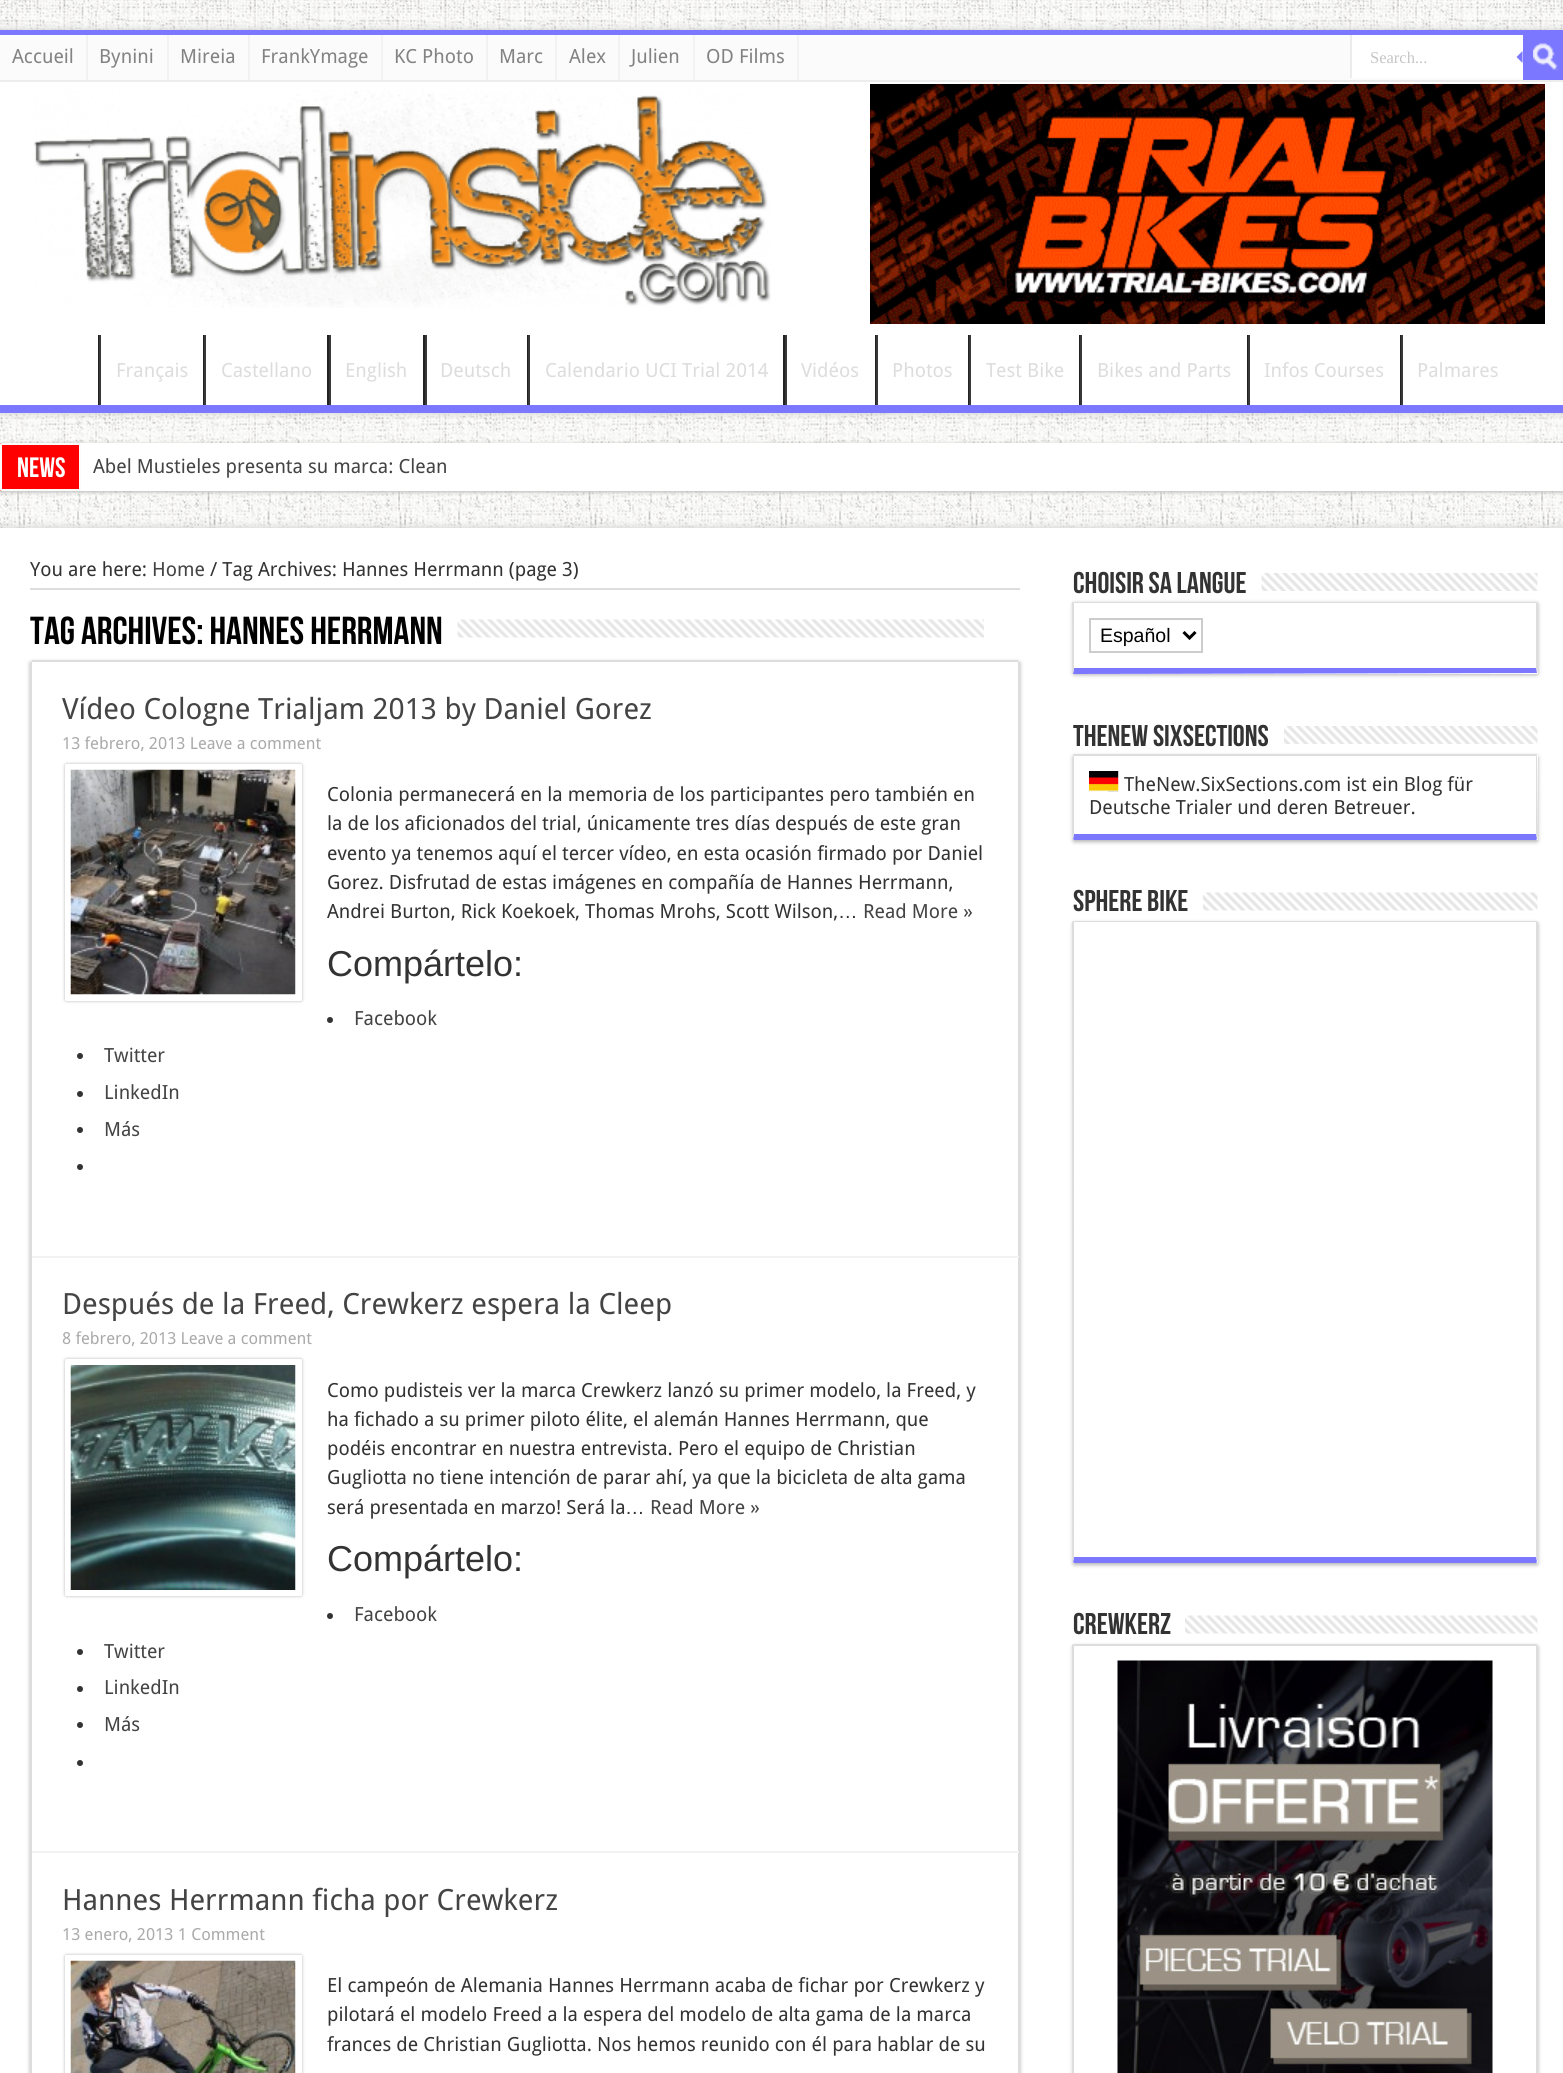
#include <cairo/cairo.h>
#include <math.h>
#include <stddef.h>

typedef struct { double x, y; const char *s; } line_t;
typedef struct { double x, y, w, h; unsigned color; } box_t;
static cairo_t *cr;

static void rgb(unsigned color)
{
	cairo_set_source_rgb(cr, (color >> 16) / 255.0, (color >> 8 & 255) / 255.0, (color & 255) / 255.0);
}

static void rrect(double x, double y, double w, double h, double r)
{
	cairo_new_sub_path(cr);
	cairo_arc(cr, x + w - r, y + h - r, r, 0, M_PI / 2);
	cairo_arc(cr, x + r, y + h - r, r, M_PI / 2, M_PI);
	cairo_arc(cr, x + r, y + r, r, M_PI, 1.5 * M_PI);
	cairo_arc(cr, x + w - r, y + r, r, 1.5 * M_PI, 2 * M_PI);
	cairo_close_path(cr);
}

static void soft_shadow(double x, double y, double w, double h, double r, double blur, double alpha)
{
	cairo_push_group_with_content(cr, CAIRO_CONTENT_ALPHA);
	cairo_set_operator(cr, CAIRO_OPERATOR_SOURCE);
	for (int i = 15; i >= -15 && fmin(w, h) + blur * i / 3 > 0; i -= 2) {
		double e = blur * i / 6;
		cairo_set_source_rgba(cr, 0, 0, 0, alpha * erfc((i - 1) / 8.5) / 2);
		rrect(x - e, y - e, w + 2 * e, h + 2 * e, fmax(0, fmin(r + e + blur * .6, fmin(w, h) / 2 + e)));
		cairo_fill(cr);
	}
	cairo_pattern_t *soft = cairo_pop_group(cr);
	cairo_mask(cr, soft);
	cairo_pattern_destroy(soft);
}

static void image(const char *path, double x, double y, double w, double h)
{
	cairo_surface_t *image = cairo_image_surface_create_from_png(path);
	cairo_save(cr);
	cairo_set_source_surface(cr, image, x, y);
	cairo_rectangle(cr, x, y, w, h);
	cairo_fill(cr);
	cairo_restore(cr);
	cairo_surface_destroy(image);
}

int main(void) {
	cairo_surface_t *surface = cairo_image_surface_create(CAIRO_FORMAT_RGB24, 1563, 2073);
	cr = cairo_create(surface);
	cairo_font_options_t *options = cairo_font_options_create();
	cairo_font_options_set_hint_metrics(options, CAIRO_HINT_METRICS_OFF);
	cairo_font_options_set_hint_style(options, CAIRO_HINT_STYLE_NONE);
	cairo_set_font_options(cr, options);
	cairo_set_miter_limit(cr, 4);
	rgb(0xffffff);
	cairo_paint(cr);
	image("img/1.png", 0, 0, 1563, 528);
	rgb(0xcacaca);
	soft_shadow(0, 30, 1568, 383, 0, 4, 1);
	{
		static const box_t items[] = {
			{0, 82, 1563, 323, 0xffffff},
			{0, 35, 1523, 45, 0xfbfbfb},
			{0, 30, 1563, 5, 0x7b77ff},
			{0, 80, 1563, 2, 0xececec},
			{86, 35, 2, 45, 0xf2f2f2},
			{167, 35, 2, 45, 0xf2f2f2},
			{248, 35, 2, 45, 0xf2f2f2},
			{381, 35, 2, 45, 0xf2f2f2},
			{486, 35, 2, 45, 0xf2f2f2},
			{555, 35, 2, 45, 0xf2f2f2},
			{618, 35, 2, 45, 0xf2f2f2},
			{693, 35, 2, 45, 0xf2f2f2},
			{797, 35, 2, 45, 0xf2f2f2},
			{1352, 35, 171, 43, 0xffffff},
			{1350, 35, 2, 43, 0xececec},
			{1523, 35, 40, 45, 0x7b77ff},
		};
		for (size_t i = 0; i < sizeof items / sizeof *items; i++) {
			rgb(items[i].color);
			cairo_rectangle(cr, items[i].x, items[i].y, items[i].w, items[i].h);
			cairo_fill(cr);
		}
	}
	image("img/2.png", 1533, 43, 26, 28);
	cairo_new_path(cr);
	cairo_move_to(cr, 1522.5, 51);
	cairo_line_to(cr, 1522.5, 63);
	cairo_line_to(cr, 1516.5, 57);
	cairo_close_path(cr);
	cairo_fill(cr);
	image("img/3.png", 34, 89, 737, 219);
	image("img/4.png", 870, 84, 675, 240);
	{
		static const box_t items[] = {
			{0, 405, 1563, 8, 0x7b77ff},
			{98, 335, 1, 70, 0x222222},
			{99, 335, 2, 70, 0x383838},
			{203, 335, 1, 70, 0x222222},
			{204, 335, 2, 70, 0x383838},
			{327, 335, 2, 70, 0x222222},
			{329, 335, 2, 70, 0x383838},
			{423, 335, 2, 70, 0x222222},
			{425, 335, 2, 70, 0x383838},
			{527, 335, 1, 70, 0x222222},
			{528, 335, 2, 70, 0x383838},
			{783, 335, 2, 70, 0x222222},
			{785, 335, 2, 70, 0x383838},
			{875, 335, 1, 70, 0x222222},
			{876, 335, 2, 70, 0x383838},
			{968, 335, 1, 70, 0x222222},
			{969, 335, 2, 70, 0x383838},
			{1079, 335, 1, 70, 0x222222},
			{1080, 335, 2, 70, 0x383838},
			{1247, 335, 1, 70, 0x222222},
			{1248, 335, 2, 70, 0x383838},
			{1400, 335, 1, 70, 0x222222},
			{1401, 335, 2, 70, 0x383838},
		};
		for (size_t i = 0; i < sizeof items / sizeof *items; i++) {
			rgb(items[i].color);
			cairo_rectangle(cr, items[i].x, items[i].y, items[i].w, items[i].h);
			cairo_fill(cr);
		}
	}
	rgb(0xb5b5b5);
	soft_shadow(0, 444, 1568, 48, 1.5, 2, 1);
	rgb(0xffffff);
	rrect(0, 443, 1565, 48, 1.5);
	cairo_fill(cr);
	rgb(0xff0000);
	cairo_new_path(cr);
	cairo_move_to(cr, 1.5, 443);
	cairo_line_to(cr, 81, 443);
	cairo_line_to(cr, 81, 491);
	cairo_line_to(cr, 1.5, 491);
	cairo_curve_to(cr, 0.5, 491, 0, 490.5, 0, 489.5);
	cairo_line_to(cr, 0, 444.5);
	cairo_curve_to(cr, 0, 443.5, 0.5, 443, 1.5, 443);
	cairo_close_path(cr);
	cairo_fill(cr);
	rgb(0xfbfbfb);
	cairo_set_fill_rule(cr, CAIRO_FILL_RULE_EVEN_ODD);
	cairo_new_path(cr);
	cairo_move_to(cr, 2, 443);
	cairo_curve_to(cr, 1, 443, 0, 444, 0, 444);
	cairo_line_to(cr, 0, 490);
	cairo_curve_to(cr, 0, 490, 1, 491, 2, 491);
	cairo_line_to(cr, 81, 491);
	cairo_line_to(cr, 81, 443);
	cairo_close_path(cr);
	cairo_move_to(cr, 2, 445);
	cairo_line_to(cr, 2, 489);
	cairo_line_to(cr, 79, 489);
	cairo_line_to(cr, 79, 445);
	cairo_close_path(cr);
	cairo_fill(cr);
	rgb(0xcacaca);
	soft_shadow(0, 528, 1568, 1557, 0, 4, 1);
	rgb(0xffffff);
	cairo_rectangle(cr, 0, 528, 1563, 1545);
	cairo_fill(cr);
	rgb(0xdddddd);
	cairo_rectangle(cr, 30, 588, 990, 2);
	cairo_fill(cr);
	image("img/5.png", 457, 619, 527, 19);
	cairo_save(cr);
	cairo_new_path(cr);
	cairo_move_to(cr, 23, 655);
	cairo_line_to(cr, 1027, 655);
	cairo_line_to(cr, 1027, 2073);
	cairo_line_to(cr, 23, 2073);
	cairo_close_path(cr);
	cairo_move_to(cr, 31.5, 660);
	cairo_line_to(cr, 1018.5, 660);
	cairo_curve_to(cr, 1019.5, 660, 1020, 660.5, 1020, 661.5);
	cairo_line_to(cr, 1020, 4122.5);
	cairo_curve_to(cr, 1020, 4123.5, 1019.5, 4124, 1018.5, 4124);
	cairo_line_to(cr, 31.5, 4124);
	cairo_curve_to(cr, 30.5, 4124, 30, 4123.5, 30, 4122.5);
	cairo_line_to(cr, 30, 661.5);
	cairo_curve_to(cr, 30, 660.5, 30.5, 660, 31.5, 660);
	cairo_close_path(cr);
	cairo_clip(cr);
	rgb(0xb5b5b5);
	soft_shadow(30, 662, 990, 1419, 1.5, 2, 1);
	cairo_restore(cr);
	cairo_set_fill_rule(cr, CAIRO_FILL_RULE_WINDING);
	cairo_new_path(cr);
	cairo_move_to(cr, 32, 660);
	cairo_line_to(cr, 31, 661);
	cairo_line_to(cr, 32, 662);
	cairo_line_to(cr, 1018, 662);
	cairo_line_to(cr, 1019, 661);
	cairo_line_to(cr, 1018, 660);
	cairo_close_path(cr);
	cairo_fill(cr);
	cairo_new_path(cr);
	cairo_move_to(cr, 1020, 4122);
	cairo_line_to(cr, 1020, 662);
	cairo_line_to(cr, 1019, 661);
	cairo_line_to(cr, 1018, 662);
	cairo_line_to(cr, 1018, 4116);
	cairo_line_to(cr, 1020, 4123);
	cairo_close_path(cr);
	cairo_fill(cr);
	cairo_new_path(cr);
	cairo_move_to(cr, 32, 662);
	cairo_line_to(cr, 31, 661);
	cairo_line_to(cr, 30, 662);
	cairo_line_to(cr, 30, 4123);
	cairo_line_to(cr, 32, 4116);
	cairo_close_path(cr);
	cairo_fill(cr);
	rgb(0xf2f2f2);
	cairo_rectangle(cr, 32, 1256, 987, 2);
	cairo_fill(cr);
	rgb(0xb5b5b5);
	soft_shadow(65, 764, 237, 237, 1.5, 1.5, 1);
	rgb(0xffffff);
	rrect(65, 764, 237, 237, 1.5);
	cairo_fill(cr);
	image("img/6.png", 70, 769, 226, 226);
	rgb(0x333333);
	cairo_arc(cr, 330, 1020, 3, 0, 2 * M_PI);
	cairo_fill(cr);
	cairo_arc(cr, 80, 1056, 3, 0, 2 * M_PI);
	cairo_fill(cr);
	cairo_arc(cr, 80, 1094, 3, 0, 2 * M_PI);
	cairo_fill(cr);
	cairo_arc(cr, 80, 1130, 3, 0, 2 * M_PI);
	cairo_fill(cr);
	cairo_arc(cr, 80, 1167, 3, 0, 2 * M_PI);
	cairo_fill(cr);
	rgb(0xf2f2f2);
	cairo_rectangle(cr, 32, 1851, 987, 2);
	cairo_fill(cr);
	rgb(0xb5b5b5);
	soft_shadow(65, 1359, 237, 237, 1.5, 1.5, 1);
	rgb(0xffffff);
	rrect(65, 1359, 237, 237, 1.5);
	cairo_fill(cr);
	image("img/7.png", 70, 1365, 226, 225);
	rgb(0x333333);
	cairo_arc(cr, 330, 1616, 3, 0, 2 * M_PI);
	cairo_fill(cr);
	cairo_arc(cr, 80, 1652, 3, 0, 2 * M_PI);
	cairo_fill(cr);
	cairo_arc(cr, 80, 1689, 3, 0, 2 * M_PI);
	cairo_fill(cr);
	cairo_arc(cr, 80, 1725, 3, 0, 2 * M_PI);
	cairo_fill(cr);
	cairo_arc(cr, 80, 1763, 3, 0, 2 * M_PI);
	cairo_fill(cr);
	rgb(0xb5b5b5);
	soft_shadow(65, 1955, 237, 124, 1.5, 1.5, 1);
	rgb(0xffffff);
	rrect(65, 1955, 237, 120, 1.5);
	cairo_fill(cr);
	image("img/8.png", 70, 1960, 226, 113);
	image("img/9.png", 1261, 573, 277, 18);
	cairo_save(cr);
	cairo_set_fill_rule(cr, CAIRO_FILL_RULE_EVEN_ODD);
	cairo_new_path(cr);
	cairo_move_to(cr, 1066, 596);
	cairo_line_to(cr, 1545, 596);
	cairo_line_to(cr, 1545, 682);
	cairo_line_to(cr, 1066, 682);
	cairo_close_path(cr);
	cairo_move_to(cr, 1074.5, 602);
	cairo_line_to(cr, 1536.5, 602);
	cairo_curve_to(cr, 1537.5, 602, 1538, 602.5, 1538, 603.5);
	cairo_line_to(cr, 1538, 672.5);
	cairo_curve_to(cr, 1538, 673.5, 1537.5, 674, 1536.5, 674);
	cairo_line_to(cr, 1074.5, 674);
	cairo_curve_to(cr, 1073.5, 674, 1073, 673.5, 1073, 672.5);
	cairo_line_to(cr, 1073, 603.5);
	cairo_curve_to(cr, 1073, 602.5, 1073.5, 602, 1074.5, 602);
	cairo_close_path(cr);
	cairo_clip(cr);
	rgb(0xb5b5b5);
	soft_shadow(1073, 603, 465, 72, 1.5, 2, 1);
	cairo_restore(cr);
	rgb(0xdddddd);
	cairo_new_path(cr);
	cairo_move_to(cr, 1074, 602);
	cairo_line_to(cr, 1073, 602);
	cairo_line_to(cr, 1074, 603);
	cairo_line_to(cr, 1536, 603);
	cairo_line_to(cr, 1537, 602);
	cairo_line_to(cr, 1536, 602);
	cairo_close_path(cr);
	cairo_fill(cr);
	cairo_new_path(cr);
	cairo_move_to(cr, 1538, 673);
	cairo_line_to(cr, 1536, 668);
	cairo_line_to(cr, 1536, 603);
	cairo_line_to(cr, 1537, 602);
	cairo_line_to(cr, 1538, 602);
	cairo_close_path(cr);
	cairo_fill(cr);
	rgb(0x7b77ff);
	cairo_new_path(cr);
	cairo_move_to(cr, 1073, 674);
	cairo_line_to(cr, 1074, 668);
	cairo_line_to(cr, 1536, 668);
	cairo_line_to(cr, 1537, 673);
	cairo_close_path(cr);
	cairo_fill(cr);
	rgb(0xdddddd);
	cairo_new_path(cr);
	cairo_move_to(cr, 1074, 603);
	cairo_line_to(cr, 1074, 668);
	cairo_line_to(cr, 1073, 673);
	cairo_line_to(cr, 1072, 602);
	cairo_line_to(cr, 1073, 602);
	cairo_close_path(cr);
	cairo_fill(cr);
	cairo_rectangle(cr, 1090, 619, 112, 33);
	rgb(0xcccccc);
	cairo_stroke(cr);
	cairo_new_path(cr);
	cairo_move_to(cr, 1183.5, 632);
	cairo_line_to(cr, 1189.5, 638);
	cairo_line_to(cr, 1195.5, 632);
	rgb(0x000000);
	cairo_set_line_width(cr, 3);
	cairo_stroke(cr);
	image("img/10.png", 1284, 726, 254, 18);
	cairo_save(cr);
	cairo_set_fill_rule(cr, CAIRO_FILL_RULE_EVEN_ODD);
	cairo_new_path(cr);
	cairo_move_to(cr, 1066, 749);
	cairo_line_to(cr, 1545, 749);
	cairo_line_to(cr, 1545, 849);
	cairo_line_to(cr, 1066, 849);
	cairo_close_path(cr);
	cairo_move_to(cr, 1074.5, 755);
	cairo_line_to(cr, 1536.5, 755);
	cairo_curve_to(cr, 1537.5, 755, 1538, 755.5, 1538, 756.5);
	cairo_line_to(cr, 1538, 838.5);
	cairo_curve_to(cr, 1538, 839.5, 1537.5, 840, 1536.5, 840);
	cairo_line_to(cr, 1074.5, 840);
	cairo_curve_to(cr, 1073.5, 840, 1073, 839.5, 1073, 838.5);
	cairo_line_to(cr, 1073, 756.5);
	cairo_curve_to(cr, 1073, 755.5, 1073.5, 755, 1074.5, 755);
	cairo_close_path(cr);
	cairo_clip(cr);
	rgb(0xb5b5b5);
	soft_shadow(1073, 756, 465, 86, 1.5, 2, 1);
	cairo_restore(cr);
	rgb(0xdddddd);
	cairo_new_path(cr);
	cairo_move_to(cr, 1074, 756);
	cairo_line_to(cr, 1073, 754);
	cairo_line_to(cr, 1537, 754);
	cairo_line_to(cr, 1536, 756);
	cairo_close_path(cr);
	cairo_fill(cr);
	cairo_new_path(cr);
	cairo_move_to(cr, 1538, 839);
	cairo_line_to(cr, 1536, 834);
	cairo_line_to(cr, 1536, 756);
	cairo_line_to(cr, 1537, 755);
	cairo_close_path(cr);
	cairo_fill(cr);
	rgb(0x7b77ff);
	cairo_new_path(cr);
	cairo_move_to(cr, 1074, 840);
	cairo_line_to(cr, 1536, 840);
	cairo_line_to(cr, 1537, 839);
	cairo_line_to(cr, 1536, 834);
	cairo_line_to(cr, 1074, 834);
	cairo_line_to(cr, 1073, 839);
	cairo_close_path(cr);
	cairo_fill(cr);
	rgb(0xdddddd);
	cairo_new_path(cr);
	cairo_move_to(cr, 1074, 756);
	cairo_line_to(cr, 1074, 834);
	cairo_line_to(cr, 1073, 839);
	cairo_line_to(cr, 1073, 755);
	cairo_close_path(cr);
	cairo_fill(cr);
	image("img/11.png", 1089, 771, 30, 21);
	image("img/12.png", 1203, 892, 335, 19);
	cairo_save(cr);
	cairo_set_fill_rule(cr, CAIRO_FILL_RULE_EVEN_ODD);
	cairo_new_path(cr);
	cairo_move_to(cr, 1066, 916);
	cairo_line_to(cr, 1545, 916);
	cairo_line_to(cr, 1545, 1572);
	cairo_line_to(cr, 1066, 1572);
	cairo_close_path(cr);
	cairo_move_to(cr, 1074.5, 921);
	cairo_line_to(cr, 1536.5, 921);
	cairo_curve_to(cr, 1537.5, 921, 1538, 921.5, 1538, 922.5);
	cairo_line_to(cr, 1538, 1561.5);
	cairo_curve_to(cr, 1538, 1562.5, 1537.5, 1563, 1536.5, 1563);
	cairo_line_to(cr, 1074.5, 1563);
	cairo_curve_to(cr, 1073.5, 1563, 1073, 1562.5, 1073, 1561.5);
	cairo_line_to(cr, 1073, 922.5);
	cairo_curve_to(cr, 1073, 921.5, 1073.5, 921, 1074.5, 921);
	cairo_close_path(cr);
	cairo_clip(cr);
	rgb(0xb5b5b5);
	soft_shadow(1073, 923, 465, 642, 1.5, 2, 1);
	cairo_restore(cr);
	cairo_new_path(cr);
	cairo_move_to(cr, 1074, 921);
	cairo_line_to(cr, 1073, 921);
	cairo_line_to(cr, 1074, 922);
	cairo_line_to(cr, 1536, 922);
	cairo_line_to(cr, 1537, 921);
	cairo_line_to(cr, 1536, 921);
	cairo_close_path(cr);
	cairo_fill(cr);
	cairo_new_path(cr);
	cairo_move_to(cr, 1538, 1562);
	cairo_line_to(cr, 1536, 1557);
	cairo_line_to(cr, 1536, 922);
	cairo_line_to(cr, 1537, 921);
	cairo_line_to(cr, 1538, 922);
	cairo_close_path(cr);
	cairo_fill(cr);
	rgb(0x7b77ff);
	cairo_new_path(cr);
	cairo_move_to(cr, 1074, 1563);
	cairo_line_to(cr, 1536, 1563);
	cairo_line_to(cr, 1537, 1562);
	cairo_line_to(cr, 1536, 1557);
	cairo_line_to(cr, 1074, 1557);
	cairo_line_to(cr, 1073, 1562);
	cairo_close_path(cr);
	cairo_fill(cr);
	rgb(0xdddddd);
	cairo_new_path(cr);
	cairo_move_to(cr, 1072, 922);
	cairo_line_to(cr, 1073, 921);
	cairo_line_to(cr, 1074, 922);
	cairo_line_to(cr, 1074, 1557);
	cairo_line_to(cr, 1073, 1562);
	cairo_close_path(cr);
	cairo_fill(cr);
	image("img/13.png", 1185, 1615, 353, 19);
	cairo_save(cr);
	cairo_set_fill_rule(cr, CAIRO_FILL_RULE_EVEN_ODD);
	cairo_new_path(cr);
	cairo_move_to(cr, 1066, 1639);
	cairo_line_to(cr, 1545, 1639);
	cairo_line_to(cr, 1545, 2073);
	cairo_line_to(cr, 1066, 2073);
	cairo_close_path(cr);
	cairo_move_to(cr, 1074.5, 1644);
	cairo_line_to(cr, 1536.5, 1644);
	cairo_curve_to(cr, 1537.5, 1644, 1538, 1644.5, 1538, 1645.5);
	cairo_line_to(cr, 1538, 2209.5);
	cairo_curve_to(cr, 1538, 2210.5, 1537.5, 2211, 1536.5, 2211);
	cairo_line_to(cr, 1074.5, 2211);
	cairo_curve_to(cr, 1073.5, 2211, 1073, 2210.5, 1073, 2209.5);
	cairo_line_to(cr, 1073, 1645.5);
	cairo_curve_to(cr, 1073, 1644.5, 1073.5, 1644, 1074.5, 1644);
	cairo_close_path(cr);
	cairo_clip(cr);
	rgb(0xb5b5b5);
	soft_shadow(1073, 1646, 465, 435, 1.5, 2, 1);
	cairo_restore(cr);
	cairo_new_path(cr);
	cairo_move_to(cr, 1074, 1644);
	cairo_line_to(cr, 1073, 1644);
	cairo_line_to(cr, 1074, 1646);
	cairo_line_to(cr, 1536, 1646);
	cairo_line_to(cr, 1537, 1644);
	cairo_line_to(cr, 1536, 1644);
	cairo_close_path(cr);
	cairo_fill(cr);
	cairo_new_path(cr);
	cairo_move_to(cr, 1538, 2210);
	cairo_line_to(cr, 1536, 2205);
	cairo_line_to(cr, 1536, 1646);
	cairo_line_to(cr, 1537, 1644);
	cairo_line_to(cr, 1538, 1645);
	cairo_close_path(cr);
	cairo_fill(cr);
	cairo_new_path(cr);
	cairo_move_to(cr, 1074, 1646);
	cairo_line_to(cr, 1074, 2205);
	cairo_line_to(cr, 1073, 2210);
	cairo_line_to(cr, 1072, 1645);
	cairo_line_to(cr, 1073, 1644);
	cairo_close_path(cr);
	cairo_fill(cr);
	image("img/14.png", 1117, 1660, 376, 413);
	cairo_select_font_face(cr, "Droid Sans", CAIRO_FONT_SLANT_NORMAL, CAIRO_FONT_WEIGHT_NORMAL);
	cairo_set_font_size(cr, 19.5);
	rgb(0x838383);
	{
		static const line_t items[] = {
			{12, 63, "Accueil"},
			{99, 63, "Bynini"},
			{180, 63, "Mireia"},
			{261, 63, "FrankYmage"},
			{394, 63, "KC Photo"},
			{499, 63, "Marc"},
			{569, 63, "Alex"},
			{631, 63, "Julien"},
			{706, 63, "OD Films"},
		};
		for (size_t i = 0; i < sizeof items / sizeof *items; i++) {
			cairo_move_to(cr, items[i].x, items[i].y);
			cairo_show_text(cr, items[i].s);
		}
	}
	cairo_select_font_face(cr, "Liberation Serif", CAIRO_FONT_SLANT_NORMAL, CAIRO_FONT_WEIGHT_NORMAL);
	cairo_set_font_size(cr, 16.5);
	rgb(0xc5c5c5);
	cairo_move_to(cr, 1370, 63);
	cairo_show_text(cr, "Search...");
	cairo_select_font_face(cr, "Droid Sans", CAIRO_FONT_SLANT_NORMAL, CAIRO_FONT_WEIGHT_NORMAL);
	cairo_set_font_size(cr, 19.5);
	rgb(0xdddddd);
	{
		static const line_t items[] = {
			{116, 377, "Français"},
			{221, 377, "Castellano"},
			{345, 377, "English"},
			{440, 377, "Deutsch"},
			{545, 377, "Calendario UCI Trial 2014"},
			{801, 377, "Vidéos"},
			{892, 377, "Photos"},
			{986, 377, "Test Bike"},
			{1097, 377, "Bikes and Parts"},
			{1264, 377, "Infos Courses"},
			{1417, 377, "Palmares"},
		};
		for (size_t i = 0; i < sizeof items / sizeof *items; i++) {
			cairo_move_to(cr, items[i].x, items[i].y);
			cairo_show_text(cr, items[i].s);
		}
	}
	cairo_select_font_face(cr, "Bebas Neue", CAIRO_FONT_SLANT_NORMAL, CAIRO_FONT_WEIGHT_NORMAL);
	cairo_set_font_size(cr, 28);
	rgb(0xffffff);
	cairo_move_to(cr, 17, 477);
	cairo_show_text(cr, "News");
	cairo_select_font_face(cr, "Droid Sans", CAIRO_FONT_SLANT_NORMAL, CAIRO_FONT_WEIGHT_NORMAL);
	cairo_set_font_size(cr, 19.5);
	rgb(0x444444);
	cairo_move_to(cr, 93, 473);
	cairo_show_text(cr, "Abel Mustieles presenta su marca: Clean");
	rgb(0x333333);
	cairo_move_to(cr, 30, 576);
	cairo_show_text(cr, "You are here:");
	rgb(0x444444);
	cairo_move_to(cr, 152, 576);
	cairo_show_text(cr, "Home");
	rgb(0x333333);
	cairo_move_to(cr, 210, 576);
	cairo_show_text(cr, "/ Tag Archives: Hannes Herrmann (page 3)");
	cairo_select_font_face(cr, "Bebas Neue", CAIRO_FONT_SLANT_NORMAL, CAIRO_FONT_WEIGHT_NORMAL);
	cairo_set_font_size(cr, 39);
	rgb(0x000000);
	cairo_move_to(cr, 30, 644);
	cairo_show_text(cr, "Tag Archives: Hannes Herrmann");
	cairo_select_font_face(cr, "Droid Sans", CAIRO_FONT_SLANT_NORMAL, CAIRO_FONT_WEIGHT_NORMAL);
	cairo_set_font_size(cr, 29.25);
	rgb(0x444444);
	cairo_move_to(cr, 62, 719);
	cairo_show_text(cr, "Vídeo Cologne Trialjam 2013 by Daniel Gorez");
	cairo_set_font_size(cr, 16.6);
	rgb(0xaaaaaa);
	cairo_move_to(cr, 62, 749);
	cairo_show_text(cr, "13 febrero, 2013 Leave a comment");
	cairo_set_font_size(cr, 19.5);
	rgb(0x333333);
	{
		static const line_t items[] = {
			{327, 801, "Colonia permanecerá en la memoria de los participantes pero también en"},
			{327, 830, "la de los aficionados del trial, únicamente tres días después de este gran"},
			{327, 860, "evento ya tenemos aquí el tercer vídeo, en esta ocasión firmado por Daniel"},
			{327, 889, "Gorez. Disfrutad de estas imágenes en compañía de Hannes Herrmann,"},
			{327, 918, "Andrei Burton, Rick Koekoek, Thomas Mrohs, Scott Wilson,"},
		};
		for (size_t i = 0; i < sizeof items / sizeof *items; i++) {
			cairo_move_to(cr, items[i].x, items[i].y);
			cairo_show_text(cr, items[i].s);
		}
	}
	cairo_select_font_face(cr, "Liberation Sans", CAIRO_FONT_SLANT_NORMAL, CAIRO_FONT_WEIGHT_NORMAL);
	cairo_move_to(cr, 838, 918);
	cairo_show_text(cr, "…");
	cairo_select_font_face(cr, "Droid Sans", CAIRO_FONT_SLANT_NORMAL, CAIRO_FONT_WEIGHT_NORMAL);
	rgb(0x444444);
	cairo_move_to(cr, 863, 918);
	cairo_show_text(cr, "Read More »");
	cairo_select_font_face(cr, "Liberation Sans", CAIRO_FONT_SLANT_NORMAL, CAIRO_FONT_WEIGHT_NORMAL);
	cairo_set_font_size(cr, 36);
	rgb(0x333333);
	cairo_move_to(cr, 327, 976);
	cairo_show_text(cr, "Compártelo:");
	cairo_select_font_face(cr, "Droid Sans", CAIRO_FONT_SLANT_NORMAL, CAIRO_FONT_WEIGHT_NORMAL);
	cairo_set_font_size(cr, 19.5);
	rgb(0x444444);
	{
		static const line_t items[] = {
			{354, 1025, "Facebook"},
			{104, 1062, "Twitter"},
			{104, 1099, "LinkedIn"},
			{104, 1136, "Más"},
		};
		for (size_t i = 0; i < sizeof items / sizeof *items; i++) {
			cairo_move_to(cr, items[i].x, items[i].y);
			cairo_show_text(cr, items[i].s);
		}
	}
	cairo_set_font_size(cr, 29.25);
	cairo_move_to(cr, 62, 1314);
	cairo_show_text(cr, "Después de la Freed, Crewkerz espera la Cleep");
	cairo_set_font_size(cr, 16.6);
	rgb(0xaaaaaa);
	cairo_move_to(cr, 62, 1344);
	cairo_show_text(cr, "8 febrero, 2013 Leave a comment");
	cairo_set_font_size(cr, 19.5);
	rgb(0x333333);
	{
		static const line_t items[] = {
			{327, 1397, "Como pudisteis ver la marca Crewkerz lanzó su primer modelo, la Freed, y"},
			{327, 1426, "ha fichado a su primer piloto élite, el alemán Hannes Herrmann, que"},
			{327, 1455, "podéis encontrar en nuestra entrevista. Pero el equipo de Christian"},
			{327, 1484, "Gugliotta no tiene intención de parar ahí, ya que la bicicleta de alta gama"},
			{327, 1514, "será presentada en marzo! Será la"},
		};
		for (size_t i = 0; i < sizeof items / sizeof *items; i++) {
			cairo_move_to(cr, items[i].x, items[i].y);
			cairo_show_text(cr, items[i].s);
		}
	}
	cairo_select_font_face(cr, "Liberation Sans", CAIRO_FONT_SLANT_NORMAL, CAIRO_FONT_WEIGHT_NORMAL);
	cairo_move_to(cr, 625, 1514);
	cairo_show_text(cr, "…");
	cairo_select_font_face(cr, "Droid Sans", CAIRO_FONT_SLANT_NORMAL, CAIRO_FONT_WEIGHT_NORMAL);
	rgb(0x444444);
	cairo_move_to(cr, 650, 1514);
	cairo_show_text(cr, "Read More »");
	cairo_select_font_face(cr, "Liberation Sans", CAIRO_FONT_SLANT_NORMAL, CAIRO_FONT_WEIGHT_NORMAL);
	cairo_set_font_size(cr, 36);
	rgb(0x333333);
	cairo_move_to(cr, 327, 1571);
	cairo_show_text(cr, "Compártelo:");
	cairo_select_font_face(cr, "Droid Sans", CAIRO_FONT_SLANT_NORMAL, CAIRO_FONT_WEIGHT_NORMAL);
	cairo_set_font_size(cr, 19.5);
	rgb(0x444444);
	{
		static const line_t items[] = {
			{354, 1621, "Facebook"},
			{104, 1658, "Twitter"},
			{104, 1694, "LinkedIn"},
			{104, 1731, "Más"},
		};
		for (size_t i = 0; i < sizeof items / sizeof *items; i++) {
			cairo_move_to(cr, items[i].x, items[i].y);
			cairo_show_text(cr, items[i].s);
		}
	}
	cairo_set_font_size(cr, 29.25);
	cairo_move_to(cr, 62, 1910);
	cairo_show_text(cr, "Hannes Herrmann ficha por Crewkerz");
	cairo_set_font_size(cr, 16.6);
	rgb(0xaaaaaa);
	cairo_move_to(cr, 62, 1940);
	cairo_show_text(cr, "13 enero, 2013 1 Comment");
	cairo_set_font_size(cr, 19.5);
	rgb(0x333333);
	{
		static const line_t items[] = {
			{327, 1992, "El campeón de Alemania Hannes Herrmann acaba de fichar por Crewkerz y"},
			{327, 2021, "pilotará el modelo Freed a la espera del modelo de alta gama de la marca"},
			{327, 2051, "frances de Christian Gugliotta. Nos hemos reunido con él para hablar de su"},
		};
		for (size_t i = 0; i < sizeof items / sizeof *items; i++) {
			cairo_move_to(cr, items[i].x, items[i].y);
			cairo_show_text(cr, items[i].s);
		}
	}
	cairo_select_font_face(cr, "Bebas Neue", CAIRO_FONT_SLANT_NORMAL, CAIRO_FONT_WEIGHT_NORMAL);
	cairo_set_font_size(cr, 30);
	cairo_move_to(cr, 1073, 593);
	cairo_show_text(cr, "Choisir Sa Langue");
	cairo_select_font_face(cr, "Liberation Sans", CAIRO_FONT_SLANT_NORMAL, CAIRO_FONT_WEIGHT_NORMAL);
	cairo_set_font_size(cr, 19.5);
	rgb(0x000000);
	cairo_move_to(cr, 1100, 642);
	cairo_show_text(cr, "Español");
	cairo_select_font_face(cr, "Bebas Neue", CAIRO_FONT_SLANT_NORMAL, CAIRO_FONT_WEIGHT_NORMAL);
	cairo_set_font_size(cr, 30);
	rgb(0x333333);
	cairo_move_to(cr, 1073, 746);
	cairo_show_text(cr, "TheNew Sixsections");
	cairo_select_font_face(cr, "Droid Sans", CAIRO_FONT_SLANT_NORMAL, CAIRO_FONT_WEIGHT_NORMAL);
	cairo_set_font_size(cr, 19.5);
	cairo_move_to(cr, 1124, 791);
	cairo_show_text(cr, "TheNew.SixSections.com ist ein Blog für");
	cairo_move_to(cr, 1089, 814);
	cairo_show_text(cr, "Deutsche Trialer und deren Betreuer.");
	cairo_select_font_face(cr, "Bebas Neue", CAIRO_FONT_SLANT_NORMAL, CAIRO_FONT_WEIGHT_NORMAL);
	cairo_set_font_size(cr, 30);
	cairo_move_to(cr, 1073, 911);
	cairo_show_text(cr, "Sphere Bike");
	cairo_move_to(cr, 1073, 1634);
	cairo_show_text(cr, "Crewkerz");
	cairo_surface_write_to_png(surface, "page.png");
	cairo_font_options_destroy(options);
	cairo_destroy(cr);
	cairo_surface_destroy(surface);
	return 0;
}
